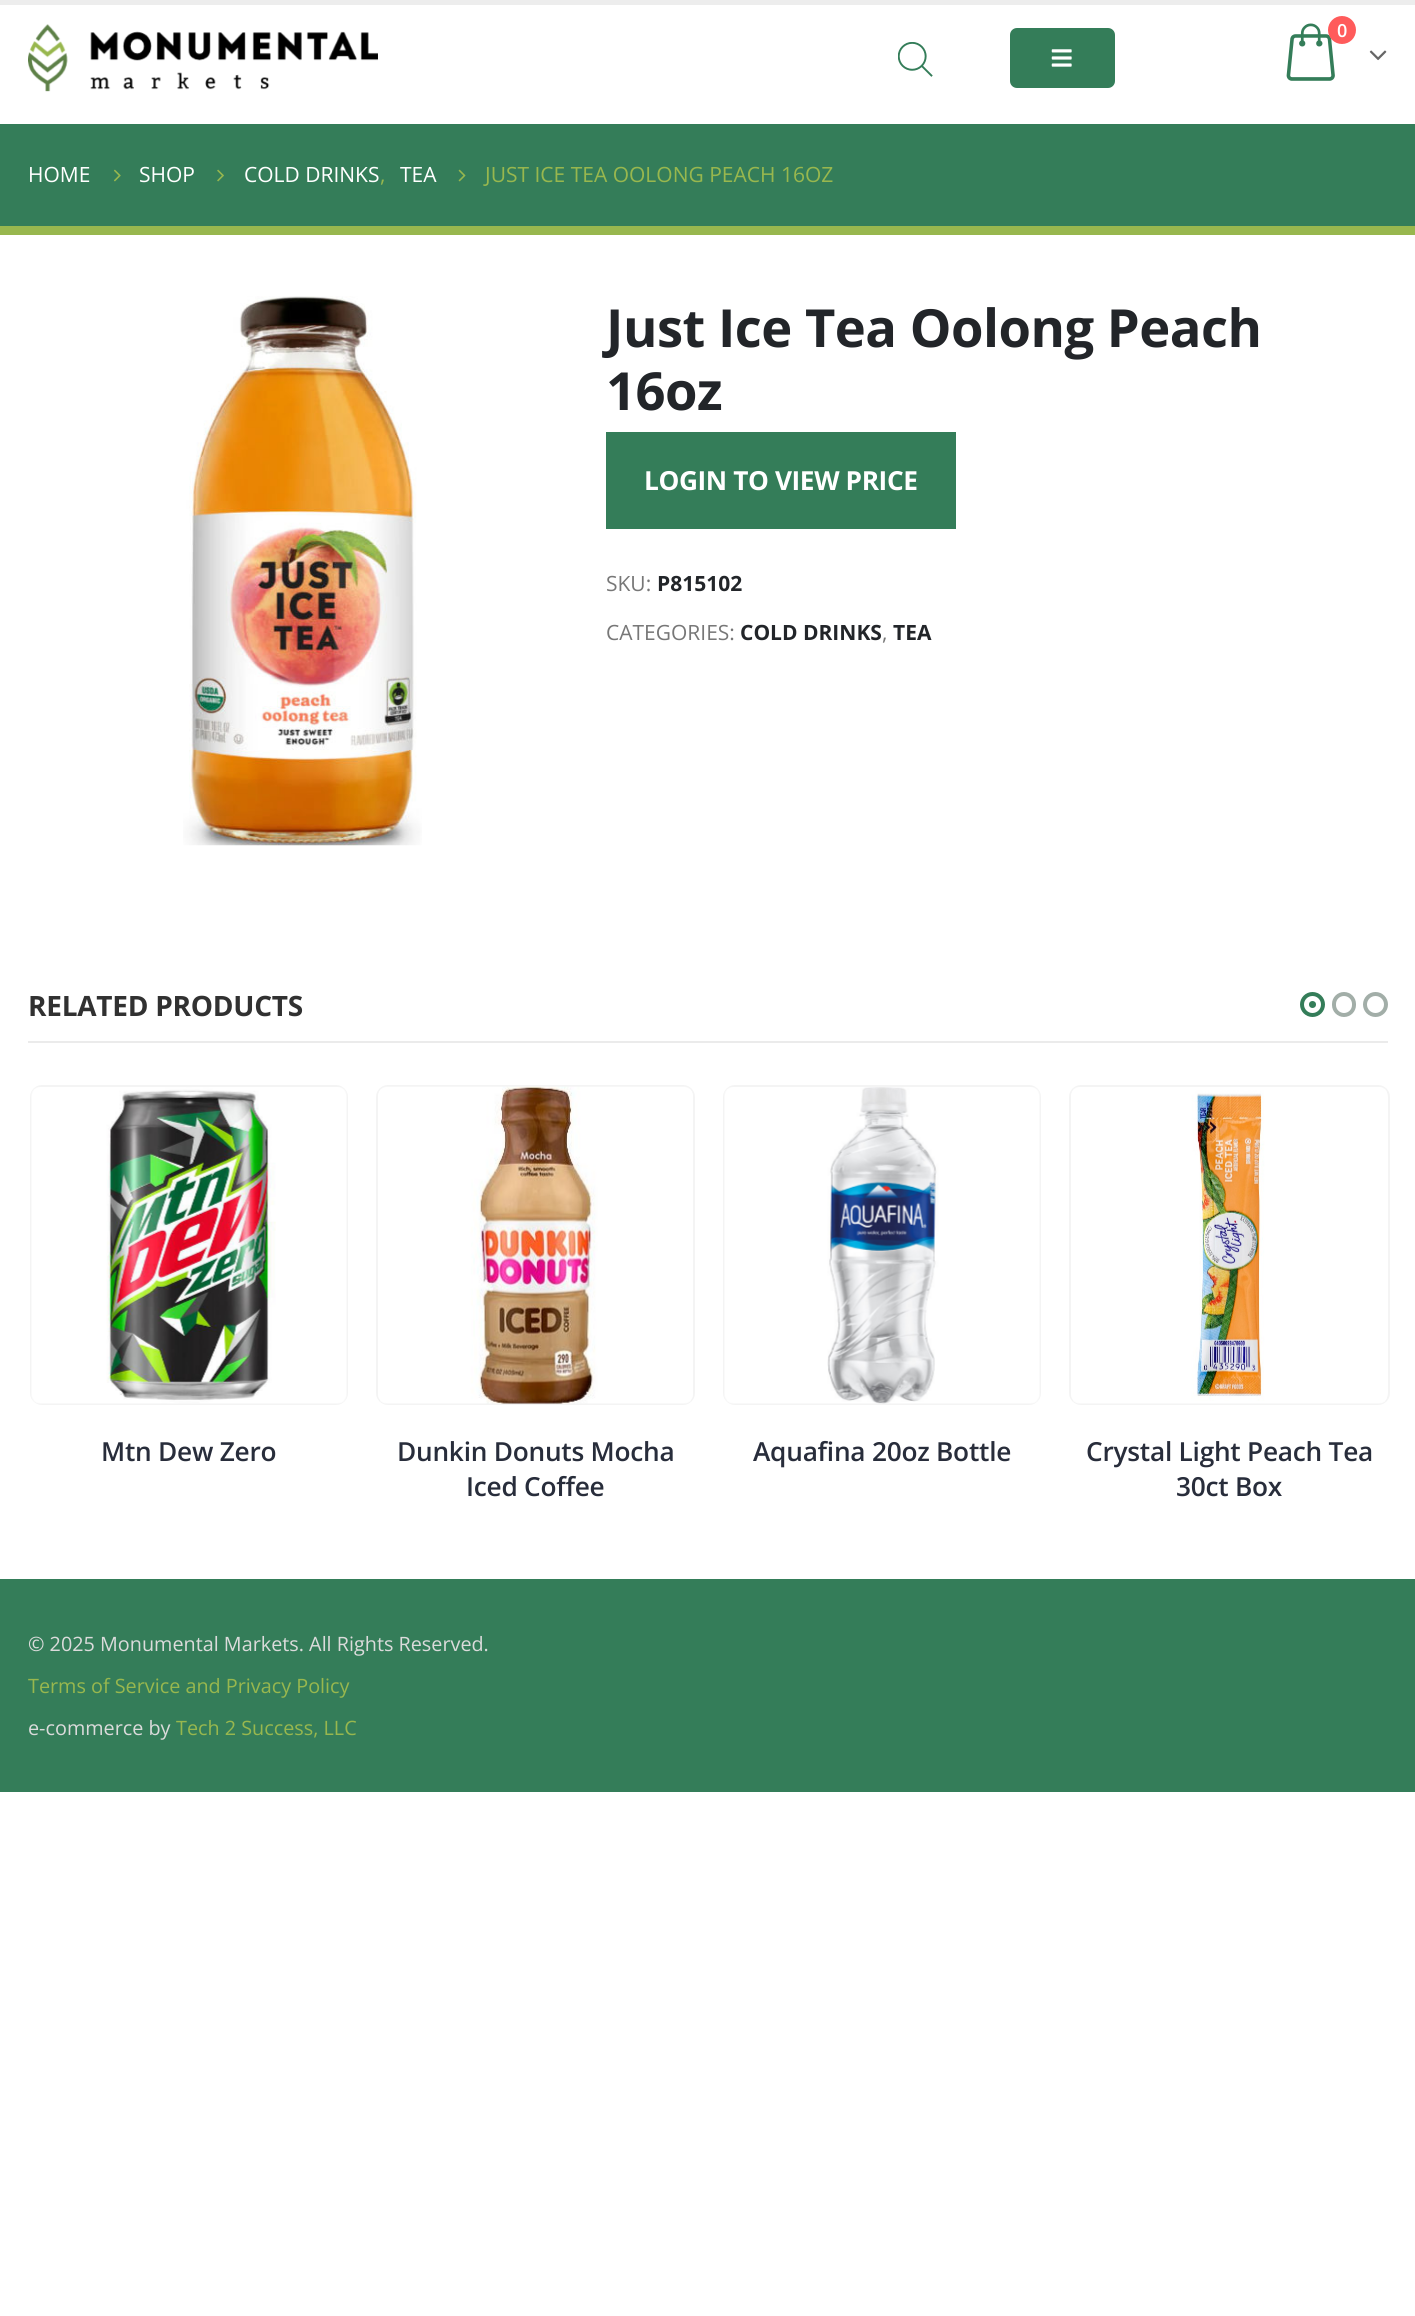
#include <cairo/cairo.h>
#include <math.h>
#include <stddef.h>

typedef struct { double x, y; const char *s; } line_t;
static cairo_t *cr;

static void rgb(unsigned color)
{
	cairo_set_source_rgb(cr, (color >> 16) / 255.0, (color >> 8 & 255) / 255.0, (color & 255) / 255.0);
}

static void tracked(double x, double y, const char *s, double letter, double word)
{
	cairo_move_to(cr, x, y);
	while (*s) {
		char ch[5] = {0};
		int n = 0;
		do ch[n++] = *s++; while ((*s & 0xC0) == 0x80);
		cairo_show_text(cr, ch);
		cairo_rel_move_to(cr, letter + word * (*ch == ' '), 0);
	}
}

static void rrect(double x, double y, double w, double h, double r)
{
	cairo_new_sub_path(cr);
	cairo_arc(cr, x + w - r, y + h - r, r, 0, M_PI / 2);
	cairo_arc(cr, x + r, y + h - r, r, M_PI / 2, M_PI);
	cairo_arc(cr, x + r, y + r, r, M_PI, 1.5 * M_PI);
	cairo_arc(cr, x + w - r, y + r, r, 1.5 * M_PI, 2 * M_PI);
	cairo_close_path(cr);
}

static void image(const char *path, double x, double y, double w, double h)
{
	cairo_surface_t *image = cairo_image_surface_create_from_png(path);
	cairo_save(cr);
	cairo_set_source_surface(cr, image, x, y);
	cairo_rectangle(cr, x, y, w, h);
	cairo_fill(cr);
	cairo_restore(cr);
	cairo_surface_destroy(image);
}

int main(void) {
	cairo_surface_t *surface = cairo_image_surface_create(CAIRO_FORMAT_RGB24, 1415, 2316);
	cr = cairo_create(surface);
	cairo_font_options_t *options = cairo_font_options_create();
	cairo_font_options_set_hint_metrics(options, CAIRO_HINT_METRICS_OFF);
	cairo_font_options_set_hint_style(options, CAIRO_HINT_STYLE_NONE);
	cairo_set_font_options(cr, options);
	cairo_set_miter_limit(cr, 4);
	rgb(0xffffff);
	cairo_paint(cr);
	rgb(0xededed);
	cairo_rectangle(cr, 0, 0, 1415, 5);
	cairo_fill(cr);
	image("img/1.png", 28, 24, 350, 68);
	image("img/2.png", 898, 42, 35, 35);
	rgb(0x347d59);
	rrect(1010, 28, 105, 60, 7);
	cairo_fill(cr);
	image("img/3.png", 1051, 49, 21, 18);
	image("img/4.png", 1286, 23, 49, 58);
	rgb(0xff5b5b);
	cairo_arc(cr, 1342, 30, 14, 0, 2 * M_PI);
	cairo_fill(cr);
	image("img/5.png", 1369, 50, 18, 11);
	rgb(0x347d59);
	cairo_rectangle(cr, 0, 124, 1415, 102);
	cairo_fill(cr);
	rgb(0x98b74e);
	cairo_rectangle(cr, 0, 226, 1415, 9);
	cairo_fill(cr);
	image("img/6.png", 114, 169, 7, 13);
	image("img/7.png", 217, 169, 7, 13);
	image("img/8.png", 458, 169, 8, 13);
	image("img/9.png", 183, 296, 239, 550);
	rgb(0x347d59);
	cairo_rectangle(cr, 606, 432, 350, 97);
	cairo_fill(cr);
	rgb(0xebebeb);
	cairo_rectangle(cr, 28, 1041, 1360, 2);
	cairo_fill(cr);
	cairo_arc(cr, 1312.5, 1004.5, 10.5, 0, 2 * M_PI);
	rgb(0x347d59);
	cairo_set_line_width(cr, 4);
	cairo_stroke(cr);
	cairo_arc(cr, 1312.5, 1004.5, 3.5, 0, 2 * M_PI);
	cairo_fill(cr);
	rrect(1334, 994, 20, 21, 10);
	rgb(0xa2aea8);
	cairo_stroke(cr);
	cairo_arc(cr, 1375.5, 1004.5, 10.5, 0, 2 * M_PI);
	cairo_stroke(cr);
	rrect(31, 1086, 316, 318, 11);
	rgb(0xf4f4f4);
	cairo_set_line_width(cr, 2);
	cairo_stroke(cr);
	image("img/10.png", 31, 1087, 316, 317);
	rrect(377, 1086, 317, 318, 11);
	cairo_stroke(cr);
	image("img/11.png", 378, 1086, 315, 318);
	rrect(724, 1086, 316, 318, 11);
	cairo_stroke(cr);
	image("img/12.png", 724, 1087, 316, 317);
	rrect(1070, 1086, 319, 318, 11);
	cairo_stroke(cr);
	image("img/13.png", 1071, 1087, 316, 317);
	rgb(0x347d59);
	cairo_rectangle(cr, 0, 1579, 1415, 213);
	cairo_fill(cr);
	cairo_select_font_face(cr, "Open Sans SemiBold", CAIRO_FONT_SLANT_NORMAL, CAIRO_FONT_WEIGHT_NORMAL);
	cairo_set_font_size(cr, 18);
	rgb(0xffffff);
	cairo_move_to(cr, 1337, 37);
	cairo_show_text(cr, "0");
	cairo_select_font_face(cr, "Open Sans", CAIRO_FONT_SLANT_NORMAL, CAIRO_FONT_WEIGHT_NORMAL);
	cairo_set_font_size(cr, 21);
	{
		static const line_t items[] = {
			{28, 182, "HOME"},
			{139, 182, "SHOP"},
			{244, 182, "COLD DRINKS"},
		};
		for (size_t i = 0; i < sizeof items / sizeof *items; i++) {
			cairo_move_to(cr, items[i].x, items[i].y);
			cairo_show_text(cr, items[i].s);
		}
	}
	rgb(0x98b74e);
	cairo_move_to(cr, 380, 182);
	cairo_show_text(cr, ",");
	rgb(0xffffff);
	cairo_move_to(cr, 400, 182);
	cairo_show_text(cr, "TEA");
	rgb(0x98b74e);
	cairo_move_to(cr, 485, 182);
	cairo_show_text(cr, "JUST ICE TEA OOLONG PEACH 16OZ");
	cairo_select_font_face(cr, "Open Sans", CAIRO_FONT_SLANT_NORMAL, CAIRO_FONT_WEIGHT_BOLD);
	cairo_set_font_size(cr, 52.5);
	rgb(0x222529);
	tracked(606, 347, "Just Ice Tea Oolong Peach", -0.5, 0);
	tracked(606, 410, "16oz", -0.5, 0);
	cairo_set_font_size(cr, 26.25);
	rgb(0xffffff);
	tracked(644, 490, "LOGIN TO VIEW PRICE", -0.4, 0);
	cairo_select_font_face(cr, "Open Sans", CAIRO_FONT_SLANT_NORMAL, CAIRO_FONT_WEIGHT_NORMAL);
	cairo_set_font_size(cr, 21);
	rgb(0x777777);
	cairo_move_to(cr, 606, 591);
	cairo_show_text(cr, "SKU:");
	cairo_select_font_face(cr, "Open Sans", CAIRO_FONT_SLANT_NORMAL, CAIRO_FONT_WEIGHT_BOLD);
	rgb(0x222529);
	cairo_move_to(cr, 657, 591);
	cairo_show_text(cr, "P815102");
	cairo_select_font_face(cr, "Open Sans", CAIRO_FONT_SLANT_NORMAL, CAIRO_FONT_WEIGHT_NORMAL);
	rgb(0x777777);
	cairo_move_to(cr, 606, 640);
	cairo_show_text(cr, "CATEGORIES:");
	cairo_select_font_face(cr, "Open Sans", CAIRO_FONT_SLANT_NORMAL, CAIRO_FONT_WEIGHT_BOLD);
	rgb(0x222529);
	cairo_move_to(cr, 740, 640);
	cairo_show_text(cr, "COLD DRINKS");
	cairo_select_font_face(cr, "Open Sans", CAIRO_FONT_SLANT_NORMAL, CAIRO_FONT_WEIGHT_NORMAL);
	rgb(0x777777);
	cairo_move_to(cr, 882, 640);
	cairo_show_text(cr, ",");
	cairo_select_font_face(cr, "Open Sans", CAIRO_FONT_SLANT_NORMAL, CAIRO_FONT_WEIGHT_BOLD);
	rgb(0x222529);
	cairo_move_to(cr, 893, 640);
	cairo_show_text(cr, "TEA");
	cairo_set_font_size(cr, 28);
	rgb(0x313131);
	tracked(28, 1016, "RELATED PRODUCTS", -0.25, 0);
	cairo_select_font_face(cr, "Open Sans SemiBold", CAIRO_FONT_SLANT_NORMAL, CAIRO_FONT_WEIGHT_NORMAL);
	cairo_set_font_size(cr, 26.25);
	rgb(0x282d3b);
	{
		static const line_t items[] = {
			{101, 1461, "Mtn Dew Zero"},
			{397, 1461, "Dunkin Donuts Mocha"},
			{466, 1496, "Iced Coffee"},
			{753, 1461, "Aquafina 20oz Bottle"},
			{1086, 1461, "Crystal Light Peach Tea"},
			{1176, 1496, "30ct Box"},
		};
		for (size_t i = 0; i < sizeof items / sizeof *items; i++) {
			tracked(items[i].x, items[i].y, items[i].s, -0.25, 0);
		}
	}
	cairo_select_font_face(cr, "Open Sans", CAIRO_FONT_SLANT_NORMAL, CAIRO_FONT_WEIGHT_NORMAL);
	cairo_set_font_size(cr, 19.8);
	rgb(0xdbdbdb);
	cairo_move_to(cr, 28, 1651);
	cairo_show_text(cr, "© 2025 Monumental Markets. All Rights Reserved.");
	rgb(0x98b74e);
	cairo_move_to(cr, 28, 1693);
	cairo_show_text(cr, "Terms of Service and Privacy Policy");
	rgb(0xdbdbdb);
	cairo_move_to(cr, 28, 1735);
	cairo_show_text(cr, "e-commerce by");
	rgb(0x98b74e);
	cairo_move_to(cr, 176, 1735);
	cairo_show_text(cr, "Tech 2 Success, LLC");
	cairo_surface_write_to_png(surface, "page.png");
	cairo_font_options_destroy(options);
	cairo_destroy(cr);
	cairo_surface_destroy(surface);
	return 0;
}
